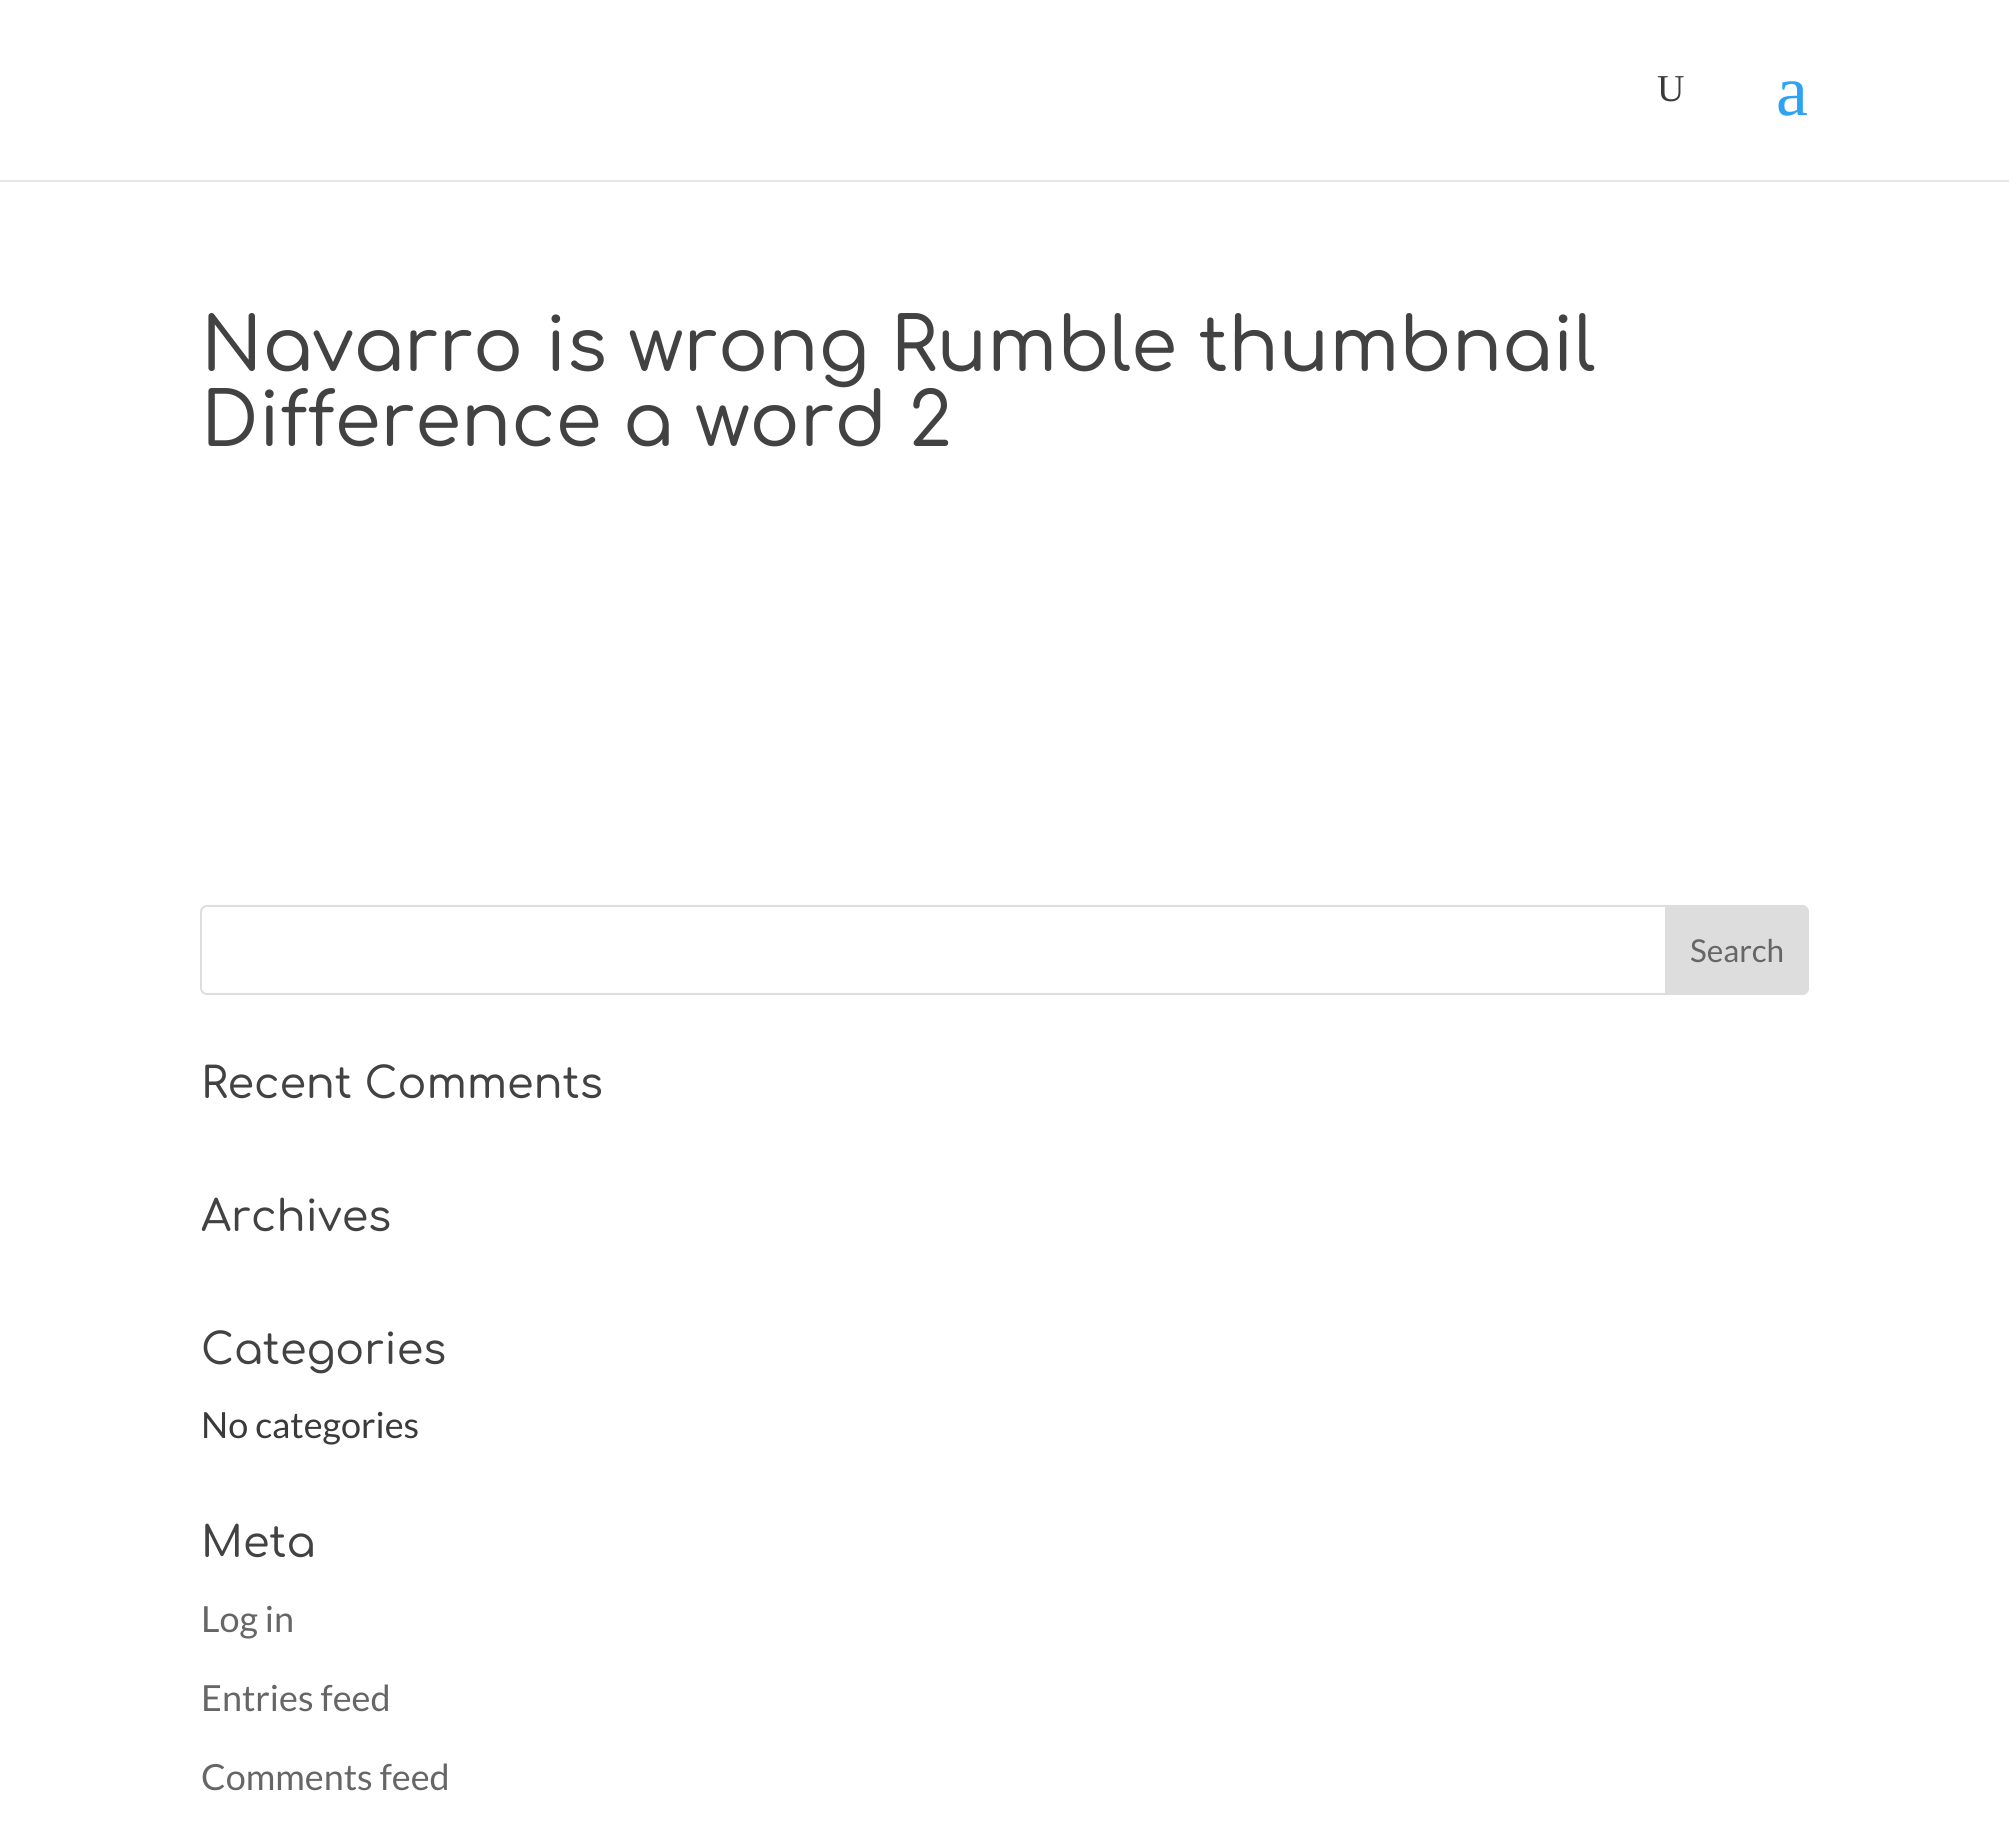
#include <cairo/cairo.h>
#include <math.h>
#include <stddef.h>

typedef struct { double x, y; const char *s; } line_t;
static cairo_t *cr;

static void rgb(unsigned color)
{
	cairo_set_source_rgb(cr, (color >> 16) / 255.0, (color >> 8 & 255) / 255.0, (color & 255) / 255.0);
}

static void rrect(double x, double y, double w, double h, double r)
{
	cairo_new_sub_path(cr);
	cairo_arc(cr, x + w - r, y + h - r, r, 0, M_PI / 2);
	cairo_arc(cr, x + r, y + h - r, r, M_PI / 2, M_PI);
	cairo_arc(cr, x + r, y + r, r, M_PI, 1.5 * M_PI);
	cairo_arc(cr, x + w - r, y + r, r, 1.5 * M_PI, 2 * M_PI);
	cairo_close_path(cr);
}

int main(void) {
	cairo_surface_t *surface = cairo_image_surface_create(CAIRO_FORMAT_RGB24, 2009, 1838);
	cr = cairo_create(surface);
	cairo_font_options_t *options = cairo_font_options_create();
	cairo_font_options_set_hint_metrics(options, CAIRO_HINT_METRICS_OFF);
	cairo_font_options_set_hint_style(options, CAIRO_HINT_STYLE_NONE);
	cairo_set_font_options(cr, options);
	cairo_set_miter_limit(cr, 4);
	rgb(0xffffff);
	cairo_paint(cr);
	rgb(0xe6e6e6);
	cairo_rectangle(cr, 0, 180, 2009, 2);
	cairo_fill(cr);
	rrect(201, 906, 1607, 88, 6);
	rgb(0xdddddd);
	cairo_stroke(cr);
	cairo_new_path(cr);
	cairo_move_to(cr, 1666, 906);
	cairo_line_to(cr, 1802, 906);
	cairo_curve_to(cr, 1805.5, 906, 1808, 908.5, 1808, 912);
	cairo_line_to(cr, 1808, 988);
	cairo_curve_to(cr, 1808, 991.5, 1805.5, 994, 1802, 994);
	cairo_line_to(cr, 1666, 994);
	cairo_close_path(cr);
	cairo_fill_preserve(cr);
	cairo_stroke(cr);
	cairo_select_font_face(cr, "Liberation Serif", CAIRO_FONT_SLANT_NORMAL, CAIRO_FONT_WEIGHT_NORMAL);
	cairo_set_font_size(cr, 38);
	rgb(0x3a3a3a);
	cairo_move_to(cr, 1657, 101);
	cairo_show_text(cr, "U");
	cairo_set_font_size(cr, 72);
	rgb(0x2ea3f2);
	cairo_move_to(cr, 1776, 115);
	cairo_show_text(cr, "a");
	cairo_select_font_face(cr, "Comfortaa Medium", CAIRO_FONT_SLANT_NORMAL, CAIRO_FONT_WEIGHT_NORMAL);
	cairo_set_font_size(cr, 74.25);
	rgb(0x424242);
	cairo_move_to(cr, 201, 371);
	cairo_show_text(cr, "Navarro is wrong Rumble thumbnail");
	cairo_move_to(cr, 201, 446);
	cairo_show_text(cr, "Difference a word 2");
	cairo_select_font_face(cr, "Lato", CAIRO_FONT_SLANT_NORMAL, CAIRO_FONT_WEIGHT_NORMAL);
	cairo_set_font_size(cr, 31.5);
	rgb(0x666666);
	cairo_move_to(cr, 1690, 962);
	cairo_show_text(cr, "Search");
	cairo_select_font_face(cr, "Comfortaa Medium", CAIRO_FONT_SLANT_NORMAL, CAIRO_FONT_WEIGHT_NORMAL);
	cairo_set_font_size(cr, 42.75);
	rgb(0x424242);
	{
		static const line_t items[] = {
			{201, 1098, "Recent Comments"},
			{201, 1231, "Archives"},
			{201, 1364, "Categories"},
		};
		for (size_t i = 0; i < sizeof items / sizeof *items; i++) {
			cairo_move_to(cr, items[i].x, items[i].y);
			cairo_show_text(cr, items[i].s);
		}
	}
	cairo_select_font_face(cr, "Lato", CAIRO_FONT_SLANT_NORMAL, CAIRO_FONT_WEIGHT_NORMAL);
	cairo_set_font_size(cr, 36);
	rgb(0x3a3a3a);
	cairo_move_to(cr, 201, 1438);
	cairo_show_text(cr, "No categories");
	cairo_select_font_face(cr, "Comfortaa Medium", CAIRO_FONT_SLANT_NORMAL, CAIRO_FONT_WEIGHT_NORMAL);
	cairo_set_font_size(cr, 42.75);
	rgb(0x424242);
	cairo_move_to(cr, 201, 1557);
	cairo_show_text(cr, "Meta");
	cairo_select_font_face(cr, "Lato", CAIRO_FONT_SLANT_NORMAL, CAIRO_FONT_WEIGHT_NORMAL);
	cairo_set_font_size(cr, 36);
	rgb(0x666666);
	{
		static const line_t items[] = {
			{201, 1632, "Log in"},
			{201, 1711, "Entries feed"},
			{201, 1790, "Comments feed"},
		};
		for (size_t i = 0; i < sizeof items / sizeof *items; i++) {
			cairo_move_to(cr, items[i].x, items[i].y);
			cairo_show_text(cr, items[i].s);
		}
	}
	cairo_surface_write_to_png(surface, "page.png");
	cairo_font_options_destroy(options);
	cairo_destroy(cr);
	cairo_surface_destroy(surface);
	return 0;
}
